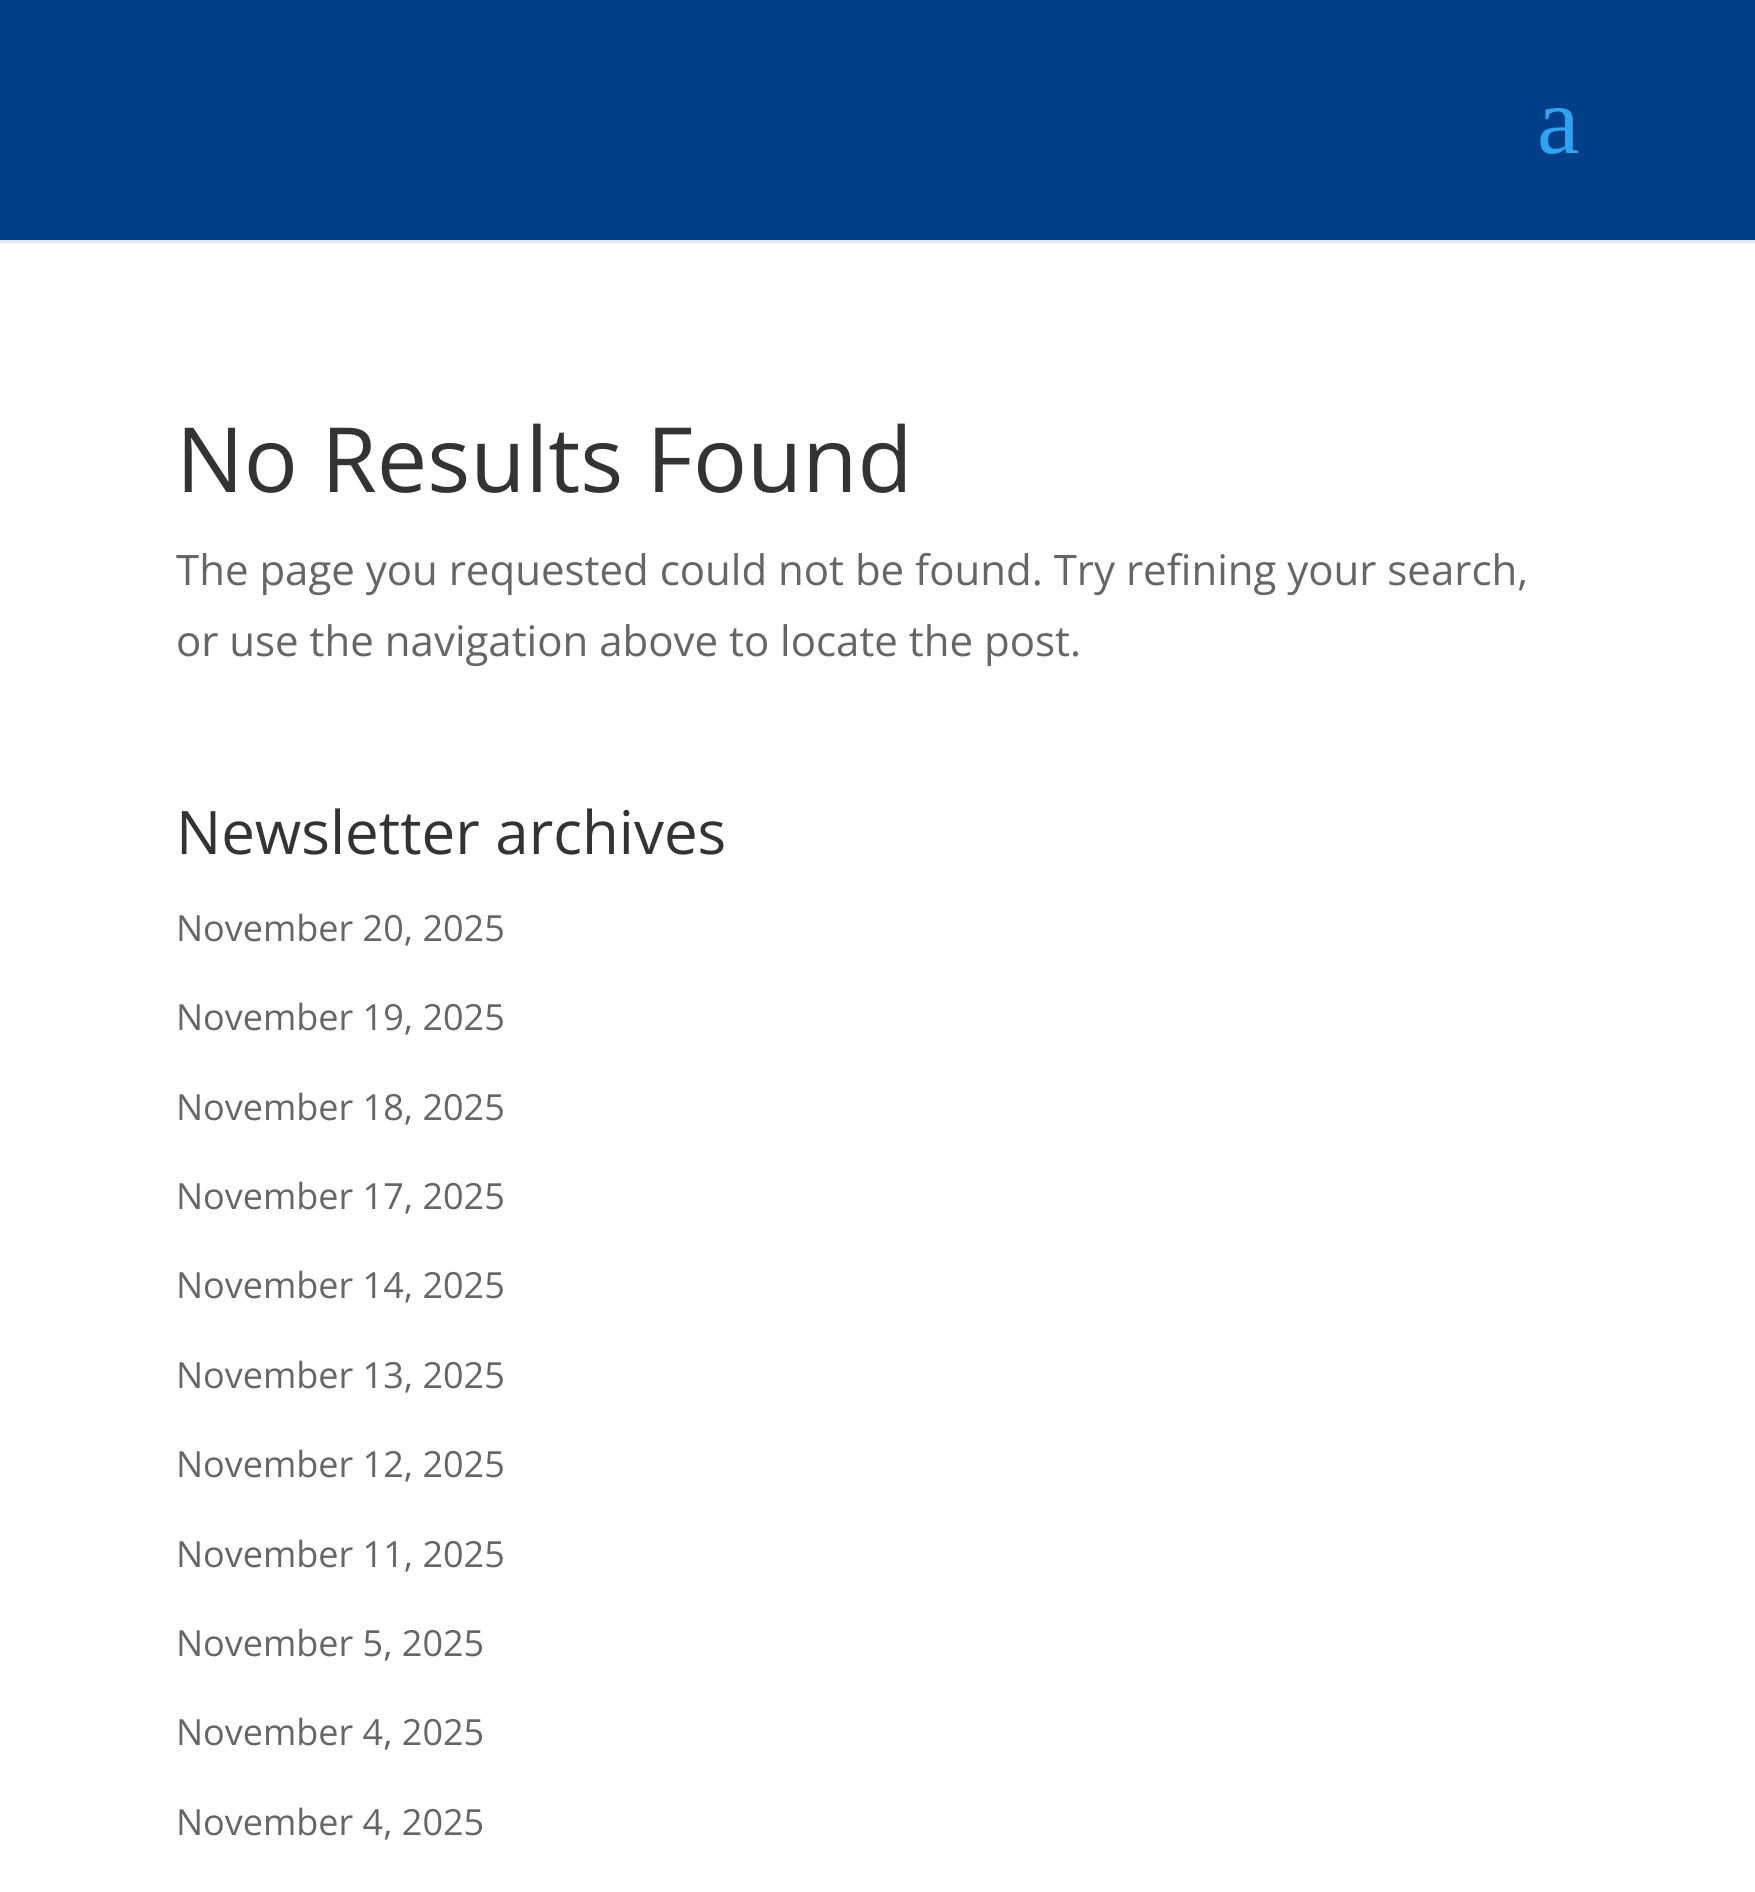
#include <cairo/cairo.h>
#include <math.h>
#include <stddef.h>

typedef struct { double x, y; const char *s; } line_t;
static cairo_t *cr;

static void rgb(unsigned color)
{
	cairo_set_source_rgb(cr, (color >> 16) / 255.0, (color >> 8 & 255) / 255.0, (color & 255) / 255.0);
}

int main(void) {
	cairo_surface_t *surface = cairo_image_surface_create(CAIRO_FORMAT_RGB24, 1755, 1892);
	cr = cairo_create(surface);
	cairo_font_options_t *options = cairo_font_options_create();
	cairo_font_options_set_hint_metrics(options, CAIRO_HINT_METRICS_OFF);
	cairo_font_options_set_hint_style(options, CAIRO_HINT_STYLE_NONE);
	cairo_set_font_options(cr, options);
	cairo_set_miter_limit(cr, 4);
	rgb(0xffffff);
	cairo_paint(cr);
	rgb(0xe6e6e6);
	cairo_rectangle(cr, 0, 240, 1755, 3);
	cairo_fill(cr);
	rgb(0x003f88);
	cairo_rectangle(cr, 0, 0, 1755, 240);
	cairo_fill(cr);
	cairo_select_font_face(cr, "Liberation Serif", CAIRO_FONT_SLANT_NORMAL, CAIRO_FONT_WEIGHT_NORMAL);
	cairo_set_font_size(cr, 96);
	rgb(0x2ea3f2);
	cairo_move_to(cr, 1537, 153);
	cairo_show_text(cr, "a");
	cairo_select_font_face(cr, "Open Sans", CAIRO_FONT_SLANT_NORMAL, CAIRO_FONT_WEIGHT_NORMAL);
	cairo_set_font_size(cr, 90);
	rgb(0x333333);
	cairo_move_to(cr, 176, 492);
	cairo_show_text(cr, "No Results Found");
	cairo_set_font_size(cr, 42);
	rgb(0x666666);
	cairo_move_to(cr, 176, 585);
	cairo_show_text(cr, "The page you requested could not be found. Try refining your search,");
	cairo_move_to(cr, 176, 656);
	cairo_show_text(cr, "or use the navigation above to locate the post.");
	cairo_set_font_size(cr, 60);
	rgb(0x333333);
	cairo_move_to(cr, 176, 854);
	cairo_show_text(cr, "Newsletter archives");
	cairo_set_font_size(cr, 36);
	rgb(0x666666);
	{
		static const line_t items[] = {
			{176, 941, "November 20, 2025"},
			{176, 1030, "November 19, 2025"},
			{176, 1120, "November 18, 2025"},
			{176, 1209, "November 17, 2025"},
			{176, 1298, "November 14, 2025"},
			{176, 1388, "November 13, 2025"},
			{176, 1477, "November 12, 2025"},
			{176, 1567, "November 11, 2025"},
			{176, 1656, "November 5, 2025"},
			{176, 1745, "November 4, 2025"},
			{176, 1835, "November 4, 2025"},
		};
		for (size_t i = 0; i < sizeof items / sizeof *items; i++) {
			cairo_move_to(cr, items[i].x, items[i].y);
			cairo_show_text(cr, items[i].s);
		}
	}
	cairo_surface_write_to_png(surface, "page.png");
	cairo_font_options_destroy(options);
	cairo_destroy(cr);
	cairo_surface_destroy(surface);
	return 0;
}
